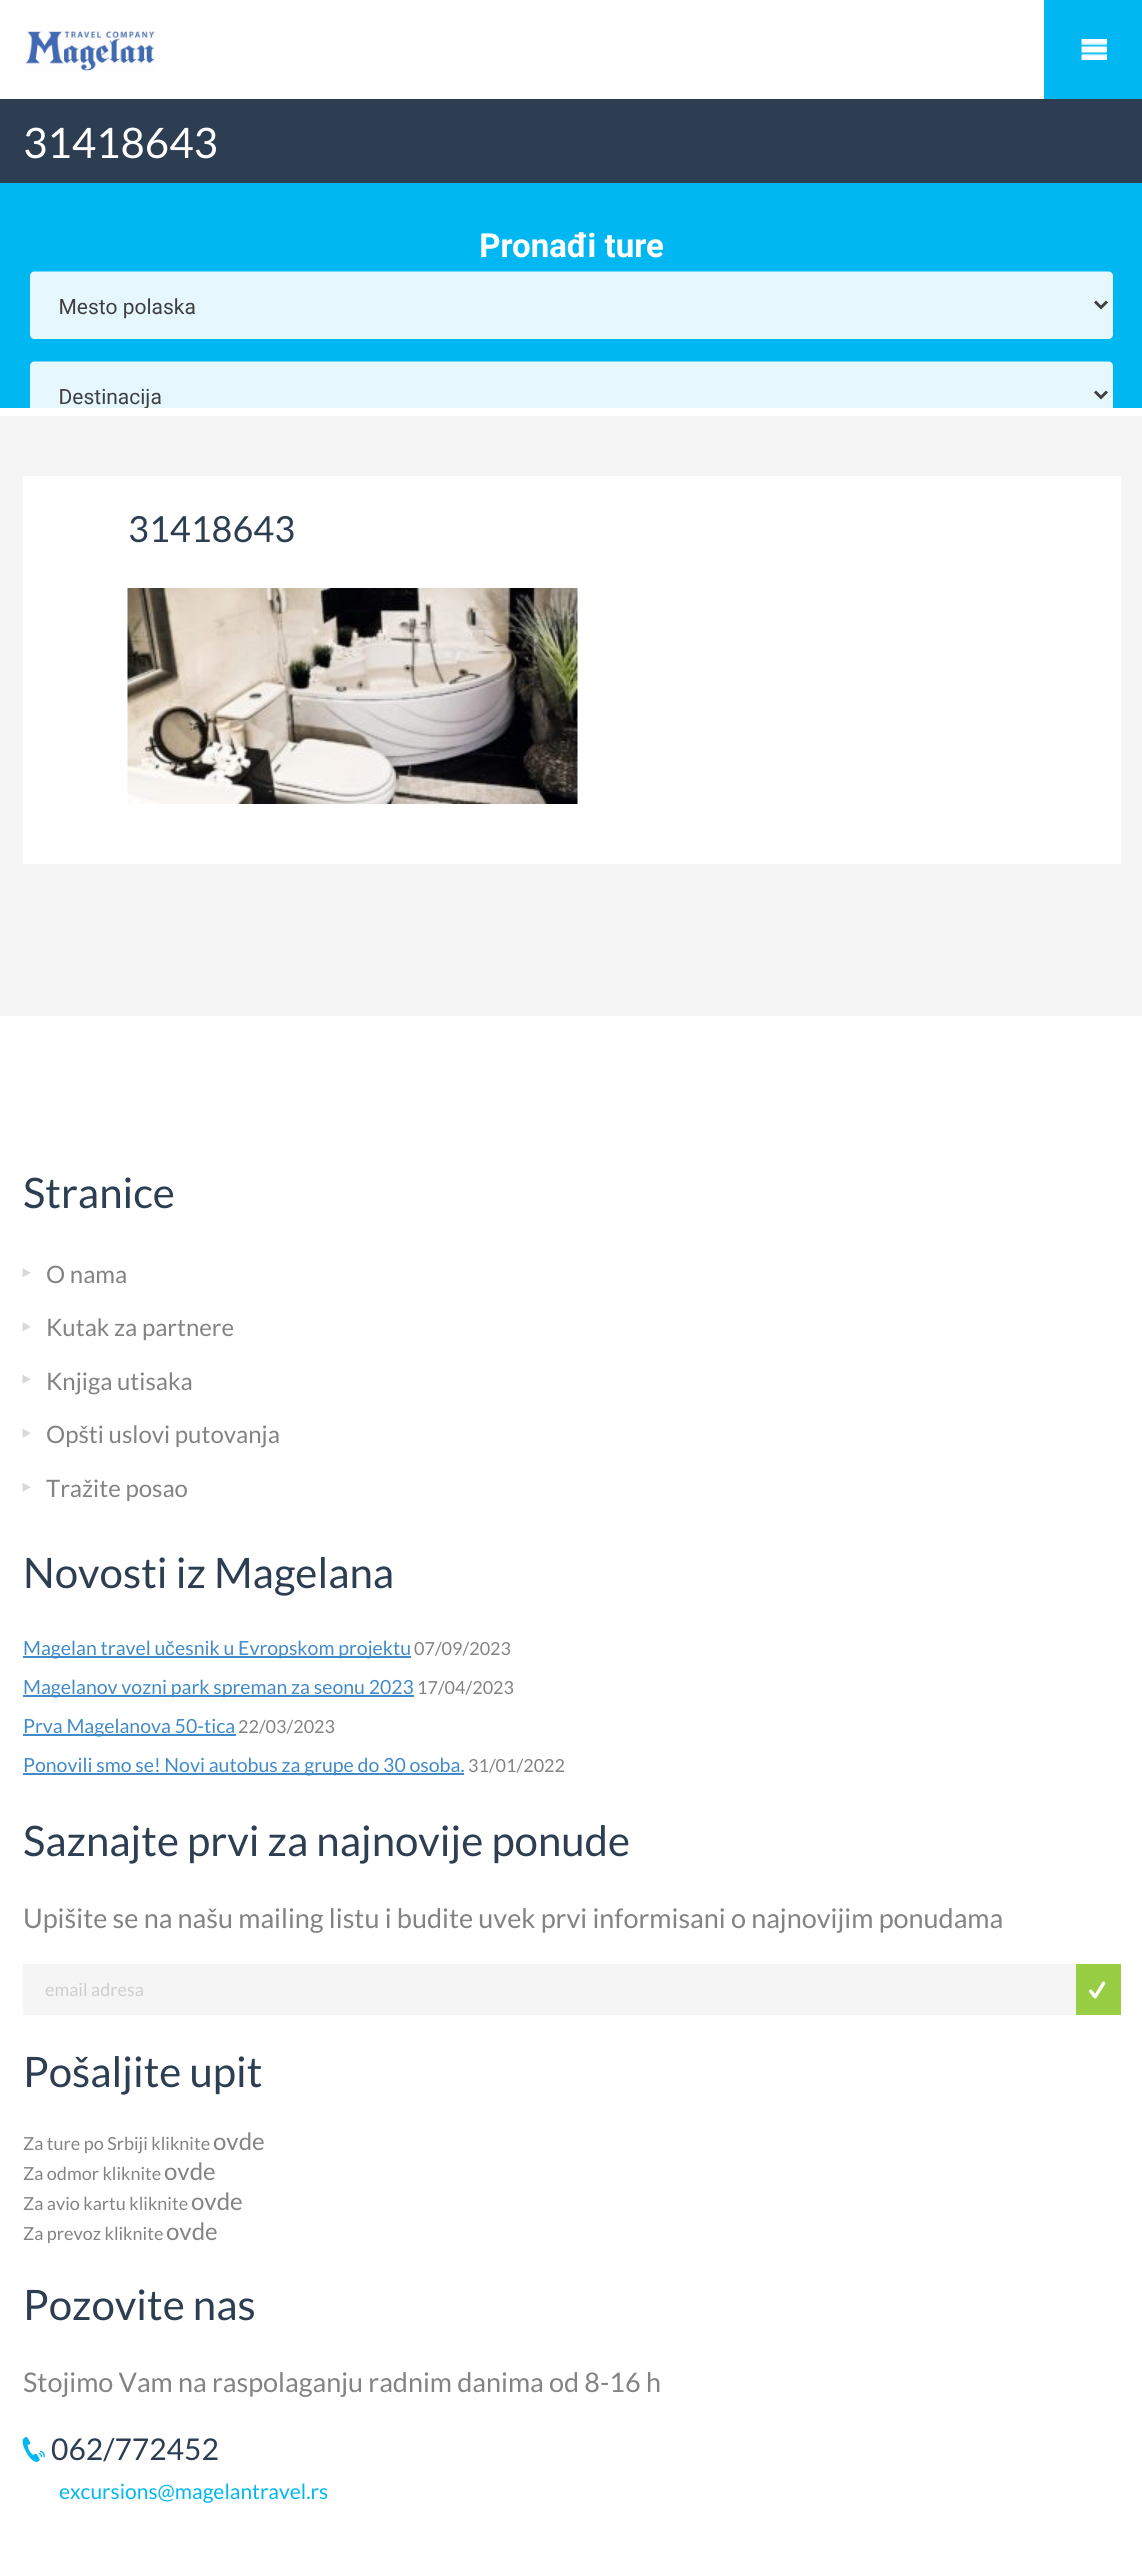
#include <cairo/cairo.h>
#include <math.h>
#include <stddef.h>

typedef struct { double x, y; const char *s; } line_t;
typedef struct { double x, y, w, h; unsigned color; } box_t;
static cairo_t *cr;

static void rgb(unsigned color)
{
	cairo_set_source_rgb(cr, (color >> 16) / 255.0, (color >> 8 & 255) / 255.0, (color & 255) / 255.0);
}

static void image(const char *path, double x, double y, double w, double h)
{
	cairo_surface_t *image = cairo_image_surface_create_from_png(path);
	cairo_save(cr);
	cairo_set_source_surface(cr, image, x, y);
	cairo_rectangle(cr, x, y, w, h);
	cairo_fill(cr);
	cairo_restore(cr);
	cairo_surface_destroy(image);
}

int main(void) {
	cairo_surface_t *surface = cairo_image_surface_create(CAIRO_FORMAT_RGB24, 1142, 2555);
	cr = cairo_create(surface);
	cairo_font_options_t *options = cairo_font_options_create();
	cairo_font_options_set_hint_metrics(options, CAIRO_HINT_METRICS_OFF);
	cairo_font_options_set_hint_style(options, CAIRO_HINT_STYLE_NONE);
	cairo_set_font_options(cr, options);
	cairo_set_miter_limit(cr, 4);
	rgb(0xffffff);
	cairo_paint(cr);
	image("img/1.png", 25, 31, 130, 40);
	rgb(0x01b7f2);
	cairo_rectangle(cr, 1044, 0, 98, 99);
	cairo_fill(cr);
	image("img/2.png", 1081, 39, 26, 21);
	rgb(0x2d3e52);
	cairo_rectangle(cr, 0, 99, 1142, 84);
	cairo_fill(cr);
	image("img/3.png", 0, 183, 1142, 225);
	rgb(0xf5f5f5);
	cairo_rectangle(cr, 0, 416, 1142, 600);
	cairo_fill(cr);
	rgb(0xffffff);
	cairo_rectangle(cr, 23, 476, 1098, 388);
	cairo_fill(cr);
	image("img/4.png", 127, 588, 451, 216);
	image("img/5.png", 22, 1268, 9, 10);
	image("img/5.png", 22, 1322, 9, 10);
	image("img/6.png", 22, 1374, 9, 10);
	image("img/6.png", 22, 1428, 9, 10);
	image("img/6.png", 22, 1482, 9, 10);
	{
		static const box_t items[] = {
			{23, 1656, 388, 2, 0x428bca},
			{23, 1695, 391, 2, 0x428bca},
			{23, 1734, 213, 2, 0x428bca},
			{23, 1773, 441, 2, 0x428bca},
			{23, 1964, 1053, 51, 0xf5f5f5},
			{1076, 1964, 45, 51, 0x98ce44},
		};
		for (size_t i = 0; i < sizeof items / sizeof *items; i++) {
			rgb(items[i].color);
			cairo_rectangle(cr, items[i].x, items[i].y, items[i].w, items[i].h);
			cairo_fill(cr);
		}
	}
	image("img/7.png", 1089, 1981, 17, 18);
	image("img/8.png", 22, 2437, 23, 25);
	cairo_select_font_face(cr, "Lato", CAIRO_FONT_SLANT_NORMAL, CAIRO_FONT_WEIGHT_NORMAL);
	cairo_set_font_size(cr, 42);
	rgb(0xffffff);
	cairo_move_to(cr, 23, 158);
	cairo_show_text(cr, "31418643");
	cairo_set_font_size(cr, 36);
	rgb(0x2d3e52);
	cairo_move_to(cr, 128, 542);
	cairo_show_text(cr, "31418643");
	cairo_set_font_size(cr, 42);
	cairo_move_to(cr, 23, 1208);
	cairo_show_text(cr, "Stranice");
	cairo_set_font_size(cr, 24);
	rgb(0x838383);
	{
		static const line_t items[] = {
			{46, 1283, "O nama"},
			{46, 1336, "Kutak za partnere"},
			{46, 1390, "Knjiga utisaka"},
			{46, 1443, "Opšti uslovi putovanja"},
			{46, 1497, "Tražite posao"},
		};
		for (size_t i = 0; i < sizeof items / sizeof *items; i++) {
			cairo_move_to(cr, items[i].x, items[i].y);
			cairo_show_text(cr, items[i].s);
		}
	}
	cairo_set_font_size(cr, 42);
	rgb(0x2d3e52);
	cairo_move_to(cr, 23, 1588);
	cairo_show_text(cr, "Novosti iz Magelana");
	cairo_set_font_size(cr, 19.5);
	rgb(0x428bca);
	cairo_move_to(cr, 23, 1655);
	cairo_show_text(cr, "Magelan travel u");
	cairo_select_font_face(cr, "Liberation Sans", CAIRO_FONT_SLANT_NORMAL, CAIRO_FONT_WEIGHT_NORMAL);
	cairo_move_to(cr, 165, 1655);
	cairo_show_text(cr, "č");
	cairo_select_font_face(cr, "Lato", CAIRO_FONT_SLANT_NORMAL, CAIRO_FONT_WEIGHT_NORMAL);
	cairo_move_to(cr, 175, 1655);
	cairo_show_text(cr, "esnik u Evropskom projektu");
	cairo_set_font_size(cr, 18);
	rgb(0x838383);
	cairo_move_to(cr, 414, 1655);
	cairo_show_text(cr, "07/09/2023");
	cairo_set_font_size(cr, 19.5);
	rgb(0x428bca);
	cairo_move_to(cr, 23, 1694);
	cairo_show_text(cr, "Magelanov vozni park spreman za seonu 2023");
	cairo_set_font_size(cr, 18);
	rgb(0x838383);
	cairo_move_to(cr, 417, 1694);
	cairo_show_text(cr, "17/04/2023");
	cairo_set_font_size(cr, 19.5);
	rgb(0x428bca);
	cairo_move_to(cr, 23, 1733);
	cairo_show_text(cr, "Prva Magelanova 50-tica");
	cairo_set_font_size(cr, 18);
	rgb(0x838383);
	cairo_move_to(cr, 238, 1733);
	cairo_show_text(cr, "22/03/2023");
	cairo_set_font_size(cr, 19.5);
	rgb(0x428bca);
	cairo_move_to(cr, 23, 1772);
	cairo_show_text(cr, "Ponovili smo se! Novi autobus za grupe do 30 osoba.");
	cairo_set_font_size(cr, 18);
	rgb(0x838383);
	cairo_move_to(cr, 468, 1772);
	cairo_show_text(cr, "31/01/2022");
	cairo_set_font_size(cr, 42);
	rgb(0x2d3e52);
	cairo_move_to(cr, 23, 1856);
	cairo_show_text(cr, "Saznajte prvi za najnovije ponude");
	cairo_set_font_size(cr, 27);
	rgb(0x838383);
	cairo_move_to(cr, 23, 1928);
	cairo_show_text(cr, "Upišite se na našu mailing listu i budite uvek prvi informisani o najnovijim ponudama");
	cairo_set_font_size(cr, 18);
	rgb(0xcecece);
	cairo_move_to(cr, 45, 1996);
	cairo_show_text(cr, "email adresa");
	cairo_set_font_size(cr, 42);
	rgb(0x2d3e52);
	cairo_move_to(cr, 23, 2087);
	cairo_show_text(cr, "Pošaljite upit");
	cairo_set_font_size(cr, 18);
	rgb(0x838383);
	cairo_move_to(cr, 23, 2150);
	cairo_show_text(cr, "Za ture po Srbiji kliknite");
	cairo_set_font_size(cr, 24);
	cairo_move_to(cr, 213, 2150);
	cairo_show_text(cr, "ovde");
	cairo_set_font_size(cr, 18);
	cairo_move_to(cr, 23, 2180);
	cairo_show_text(cr, "Za odmor kliknite");
	cairo_set_font_size(cr, 24);
	cairo_move_to(cr, 164, 2180);
	cairo_show_text(cr, "ovde");
	cairo_set_font_size(cr, 18);
	cairo_move_to(cr, 23, 2210);
	cairo_show_text(cr, "Za avio kartu kliknite");
	cairo_set_font_size(cr, 24);
	cairo_move_to(cr, 191, 2210);
	cairo_show_text(cr, "ovde");
	cairo_set_font_size(cr, 18);
	cairo_move_to(cr, 23, 2240);
	cairo_show_text(cr, "Za prevoz kliknite");
	cairo_set_font_size(cr, 24);
	cairo_move_to(cr, 166, 2240);
	cairo_show_text(cr, "ovde");
	cairo_set_font_size(cr, 42);
	rgb(0x2d3e52);
	cairo_move_to(cr, 23, 2320);
	cairo_show_text(cr, "Pozovite nas");
	cairo_set_font_size(cr, 27);
	rgb(0x838383);
	cairo_move_to(cr, 23, 2392);
	cairo_show_text(cr, "Stojimo Vam na raspolaganju radnim danima od 8-16 h");
	cairo_set_font_size(cr, 30);
	rgb(0x2d3e52);
	cairo_move_to(cr, 51, 2460);
	cairo_show_text(cr, "062/772452");
	cairo_set_font_size(cr, 21);
	rgb(0x01b7f2);
	cairo_move_to(cr, 59, 2499);
	cairo_show_text(cr, "excursions@magelantravel.rs");
	cairo_surface_write_to_png(surface, "page.png");
	cairo_font_options_destroy(options);
	cairo_destroy(cr);
	cairo_surface_destroy(surface);
	return 0;
}
